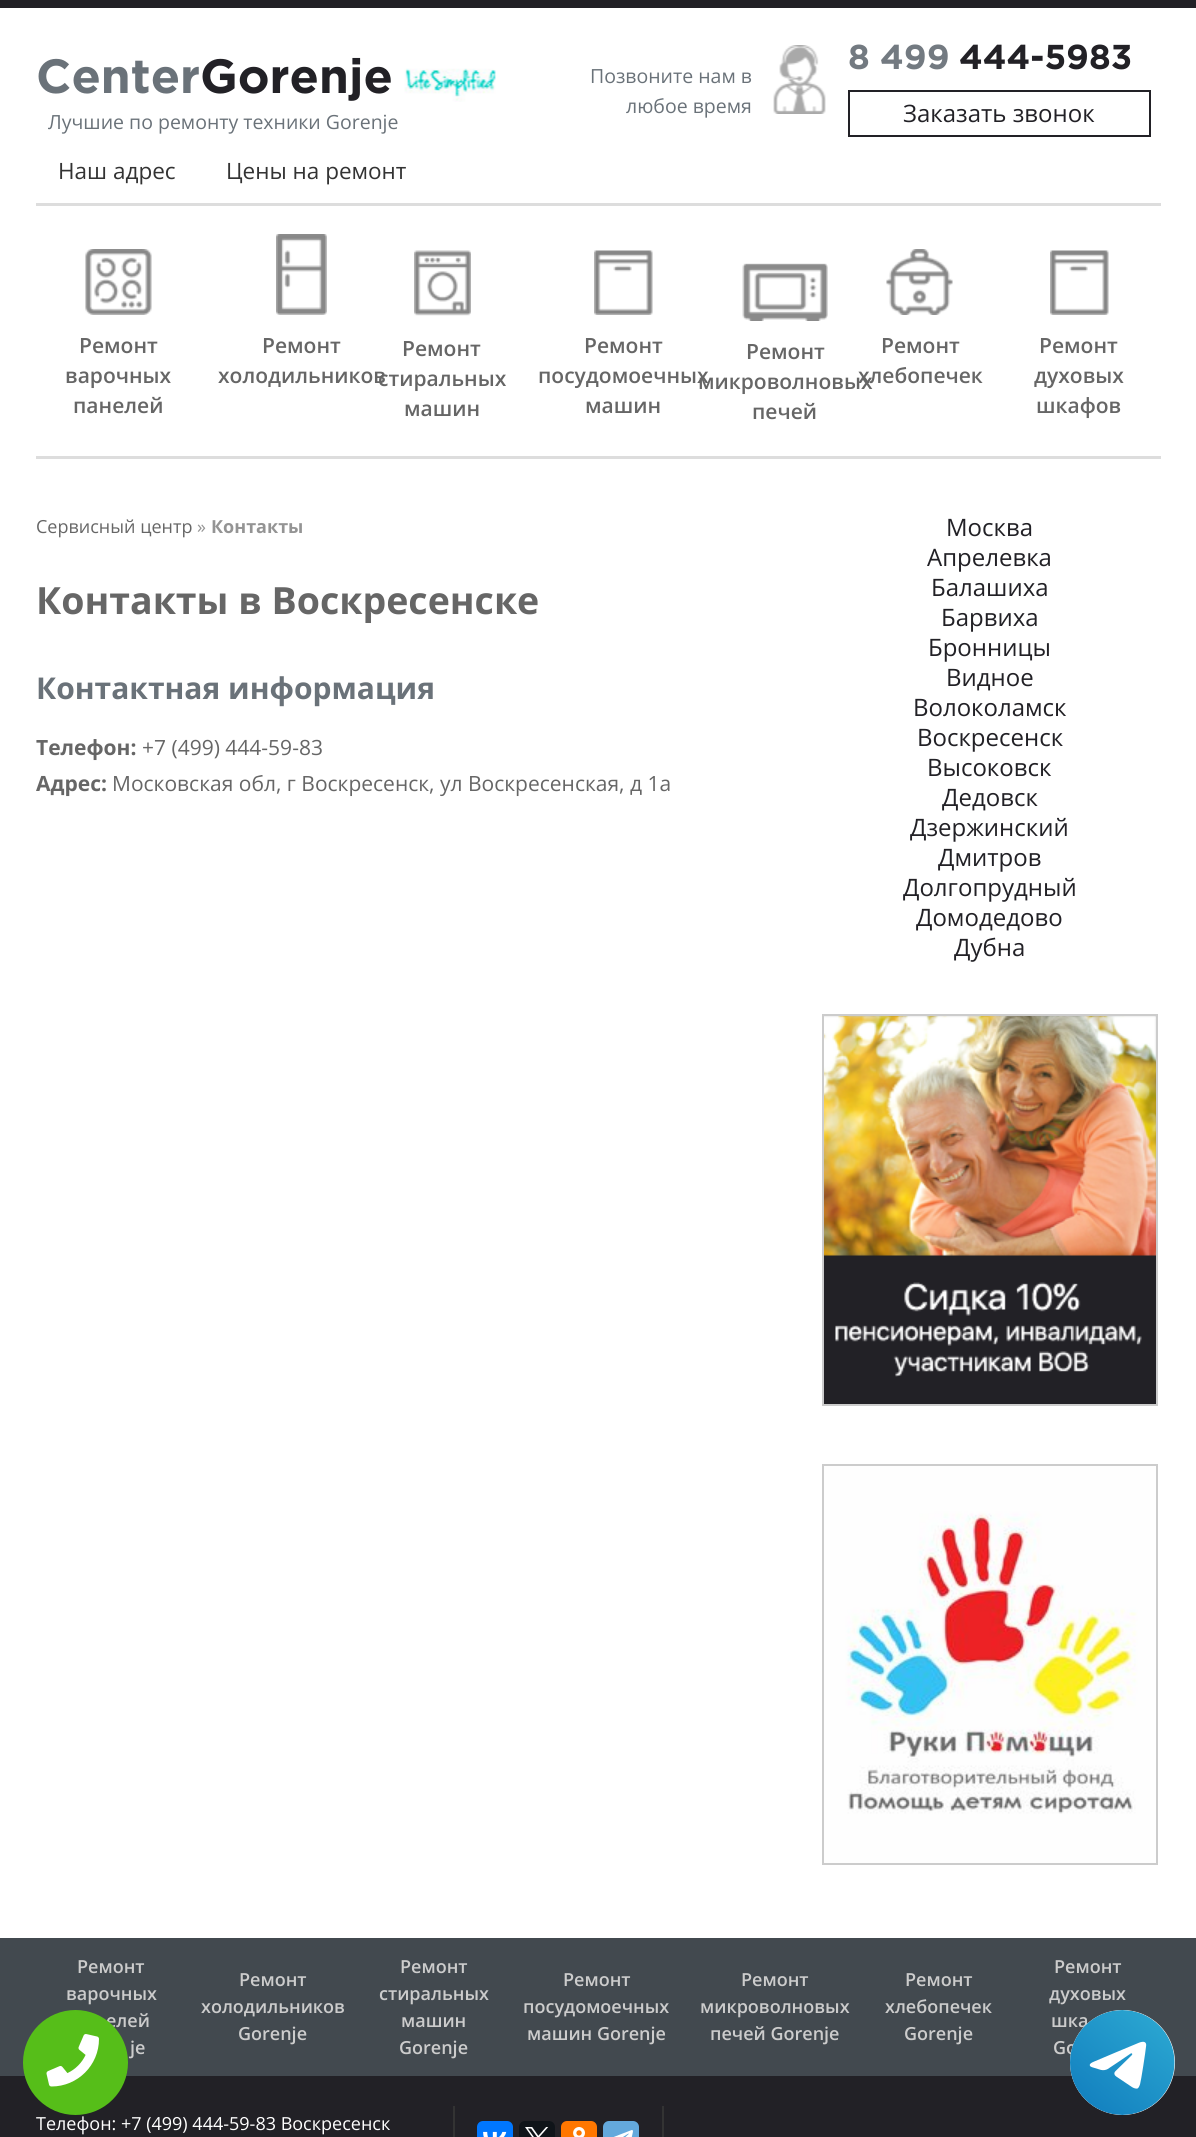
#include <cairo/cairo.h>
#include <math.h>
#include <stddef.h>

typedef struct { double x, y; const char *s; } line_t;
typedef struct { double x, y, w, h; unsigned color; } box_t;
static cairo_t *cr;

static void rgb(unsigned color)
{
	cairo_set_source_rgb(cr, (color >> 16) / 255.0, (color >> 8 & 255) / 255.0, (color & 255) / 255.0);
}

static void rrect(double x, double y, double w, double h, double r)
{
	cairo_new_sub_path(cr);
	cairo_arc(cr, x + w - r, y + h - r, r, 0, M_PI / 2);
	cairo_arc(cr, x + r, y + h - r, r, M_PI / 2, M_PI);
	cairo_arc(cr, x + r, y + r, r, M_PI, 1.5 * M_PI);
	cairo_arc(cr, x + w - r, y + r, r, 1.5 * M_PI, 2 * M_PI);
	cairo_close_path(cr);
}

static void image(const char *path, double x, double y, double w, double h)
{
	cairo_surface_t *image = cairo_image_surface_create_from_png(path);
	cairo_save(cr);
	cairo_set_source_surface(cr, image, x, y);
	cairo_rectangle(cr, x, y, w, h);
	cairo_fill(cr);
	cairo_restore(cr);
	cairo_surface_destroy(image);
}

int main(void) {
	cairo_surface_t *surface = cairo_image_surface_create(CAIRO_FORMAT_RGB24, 1196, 2137);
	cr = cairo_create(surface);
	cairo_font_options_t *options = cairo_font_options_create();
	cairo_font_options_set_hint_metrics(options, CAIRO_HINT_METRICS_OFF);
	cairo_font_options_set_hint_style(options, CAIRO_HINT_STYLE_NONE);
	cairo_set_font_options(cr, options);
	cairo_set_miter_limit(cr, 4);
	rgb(0xffffff);
	cairo_paint(cr);
	rgb(0x222126);
	cairo_rectangle(cr, 0, 0, 1196, 8);
	cairo_fill(cr);
	image("img/1.png", 404, 68, 92, 34);
	image("img/2.png", 773, 45, 53, 69);
	cairo_rectangle(cr, 849, 91, 301, 45);
	cairo_stroke(cr);
	rgb(0xdddddd);
	cairo_rectangle(cr, 36, 203, 1125, 3);
	cairo_fill(cr);
	cairo_rectangle(cr, 36, 456, 1125, 3);
	cairo_fill(cr);
	image("img/3.png", 85, 249, 67, 66);
	image("img/4.png", 276, 234, 51, 81);
	image("img/5.png", 414, 250, 57, 66);
	image("img/6.png", 594, 250, 59, 65);
	image("img/7.png", 742, 263, 86, 58);
	image("img/8.png", 886, 249, 67, 66);
	image("img/6.png", 1050, 250, 59, 65);
	rgb(0x222126);
	cairo_rectangle(cr, 824, 1016, 332, 388);
	cairo_fill(cr);
	image("img/9.png", 824, 1016, 332, 361);
	cairo_rectangle(cr, 823, 1015, 334, 390);
	rgb(0xcccccc);
	cairo_stroke(cr);
	image("img/10.png", 824, 1466, 332, 397);
	cairo_rectangle(cr, 823, 1465, 334, 399);
	cairo_stroke(cr);
	{
		static const box_t items[] = {
			{0, 1938, 1196, 138, 0x42494f},
			{0, 2076, 1196, 61, 0x222126},
			{662, 2106, 2, 31, 0x333333},
			{453, 2106, 2, 31, 0x333333},
		};
		for (size_t i = 0; i < sizeof items / sizeof *items; i++) {
			rgb(items[i].color);
			cairo_rectangle(cr, items[i].x, items[i].y, items[i].w, items[i].h);
			cairo_fill(cr);
		}
	}
	rgb(0x0077ff);
	rrect(477, 2121, 36, 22, 6);
	cairo_fill(cr);
	image("img/11.png", 483, 2131, 24, 6);
	rgb(0x0f1419);
	rrect(519, 2121, 36, 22, 6);
	cairo_fill(cr);
	image("img/12.png", 525, 2127, 24, 10);
	rgb(0xff7700);
	rrect(561, 2121, 36, 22, 6);
	cairo_fill(cr);
	image("img/13.png", 573, 2127, 12, 10);
	rgb(0x64a9dc);
	rrect(603, 2121, 36, 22, 6);
	cairo_fill(cr);
	image("img/14.png", 613, 2130, 20, 7);
	cairo_select_font_face(cr, "Gotham", CAIRO_FONT_SLANT_NORMAL, CAIRO_FONT_WEIGHT_BOLD);
	cairo_set_font_size(cr, 48);
	rgb(0x6a7279);
	cairo_move_to(cr, 36, 93);
	cairo_show_text(cr, "Center");
	rgb(0x222126);
	cairo_move_to(cr, 200, 93);
	cairo_show_text(cr, "Gorenje");
	cairo_select_font_face(cr, "Open Sans", CAIRO_FONT_SLANT_NORMAL, CAIRO_FONT_WEIGHT_NORMAL);
	cairo_set_font_size(cr, 19.5);
	rgb(0x6a7279);
	cairo_move_to(cr, 48, 129);
	cairo_show_text(cr, "Лучшие по ремонту техники Gorenje");
	cairo_set_font_size(cr, 22.5);
	rgb(0x333333);
	cairo_move_to(cr, 58, 179);
	cairo_show_text(cr, "Наш адрес");
	cairo_move_to(cr, 226, 179);
	cairo_show_text(cr, "Цены на ремонт");
	cairo_set_font_size(cr, 19.5);
	rgb(0x6a7279);
	cairo_move_to(cr, 590, 83);
	cairo_show_text(cr, "Позвоните нам в");
	cairo_move_to(cr, 626, 113);
	cairo_show_text(cr, "любое время");
	cairo_select_font_face(cr, "Gotham", CAIRO_FONT_SLANT_NORMAL, CAIRO_FONT_WEIGHT_BOLD);
	cairo_set_font_size(cr, 34.5);
	rgb(0x737a81);
	cairo_move_to(cr, 848, 69);
	cairo_show_text(cr, "8 499");
	rgb(0x222126);
	cairo_move_to(cr, 959, 69);
	cairo_show_text(cr, "444-5983");
	cairo_select_font_face(cr, "Open Sans", CAIRO_FONT_SLANT_NORMAL, CAIRO_FONT_WEIGHT_NORMAL);
	cairo_set_font_size(cr, 24);
	cairo_move_to(cr, 903, 122);
	cairo_show_text(cr, "Заказать звонок");
	cairo_select_font_face(cr, "Open Sans SemiBold", CAIRO_FONT_SLANT_NORMAL, CAIRO_FONT_WEIGHT_NORMAL);
	cairo_set_font_size(cr, 21);
	rgb(0x666666);
	{
		static const line_t items[] = {
			{79, 353, "Ремонт"},
			{65, 383, "варочных"},
			{73, 413, "панелей"},
			{262, 353, "Ремонт"},
			{218, 383, "холодильников"},
			{402, 356, "Ремонт"},
			{378, 386, "стиральных"},
			{404, 416, "машин"},
			{584, 353, "Ремонт"},
			{538, 383, "посудомоечных"},
			{585, 413, "машин"},
			{746, 359, "Ремонт"},
			{698, 389, "микроволновых"},
			{752, 419, "печей"},
			{881, 353, "Ремонт"},
			{858, 383, "хлебопечек"},
			{1039, 353, "Ремонт"},
			{1034, 383, "духовых"},
			{1036, 413, "шкафов"},
		};
		for (size_t i = 0; i < sizeof items / sizeof *items; i++) {
			cairo_move_to(cr, items[i].x, items[i].y);
			cairo_show_text(cr, items[i].s);
		}
	}
	cairo_select_font_face(cr, "Open Sans", CAIRO_FONT_SLANT_NORMAL, CAIRO_FONT_WEIGHT_NORMAL);
	cairo_set_font_size(cr, 18);
	cairo_move_to(cr, 36, 533);
	cairo_show_text(cr, "Сервисный центр");
	rgb(0x949494);
	cairo_move_to(cr, 197, 533);
	cairo_show_text(cr, "»");
	cairo_select_font_face(cr, "Open Sans", CAIRO_FONT_SLANT_NORMAL, CAIRO_FONT_WEIGHT_BOLD);
	cairo_move_to(cr, 211, 533);
	cairo_show_text(cr, "Контакты");
	cairo_set_font_size(cr, 37.5);
	rgb(0x666666);
	cairo_move_to(cr, 36, 614);
	cairo_show_text(cr, "Контакты в Воскресенске");
	cairo_set_font_size(cr, 30);
	rgb(0x6a7279);
	cairo_move_to(cr, 36, 699);
	cairo_show_text(cr, "Контактная информация");
	cairo_set_font_size(cr, 21);
	rgb(0x666666);
	cairo_move_to(cr, 36, 755);
	cairo_show_text(cr, "Телефон:");
	cairo_select_font_face(cr, "Open Sans", CAIRO_FONT_SLANT_NORMAL, CAIRO_FONT_WEIGHT_NORMAL);
	cairo_move_to(cr, 142, 755);
	cairo_show_text(cr, "+7 (499) 444-59-83");
	cairo_select_font_face(cr, "Open Sans", CAIRO_FONT_SLANT_NORMAL, CAIRO_FONT_WEIGHT_BOLD);
	cairo_move_to(cr, 36, 791);
	cairo_show_text(cr, "Адрес:");
	cairo_select_font_face(cr, "Open Sans", CAIRO_FONT_SLANT_NORMAL, CAIRO_FONT_WEIGHT_NORMAL);
	cairo_move_to(cr, 112, 791);
	cairo_show_text(cr, "Московская обл, г Воскресенск, ул Воскресенская, д 1а");
	cairo_set_font_size(cr, 24);
	rgb(0x222126);
	{
		static const line_t items[] = {
			{946, 536, "Москва"},
			{927, 566, "Апрелевка"},
			{931, 596, "Балашиха"},
			{941, 626, "Барвиха"},
			{928, 656, "Бронницы"},
			{946, 686, "Видное"},
			{913, 716, "Волоколамск"},
			{917, 746, "Воскресенск"},
			{927, 776, "Высоковск"},
			{942, 806, "Дедовск"},
			{910, 836, "Дзержинский"},
			{938, 866, "Дмитров"},
			{903, 896, "Долгопрудный"},
			{916, 926, "Домодедово"},
			{954, 956, "Дубна"},
		};
		for (size_t i = 0; i < sizeof items / sizeof *items; i++) {
			cairo_move_to(cr, items[i].x, items[i].y);
			cairo_show_text(cr, items[i].s);
		}
	}
	cairo_select_font_face(cr, "Open Sans SemiBold", CAIRO_FONT_SLANT_NORMAL, CAIRO_FONT_WEIGHT_NORMAL);
	cairo_set_font_size(cr, 18);
	rgb(0xcccccc);
	{
		static const line_t items[] = {
			{77, 1973, "Ремонт"},
			{66, 2000, "варочных"},
			{106, 2027, "елей"},
			{130, 2054, "je"},
			{239, 1986, "Ремонт"},
			{201, 2013, "холодильников"},
			{238, 2040, "Gorenje"},
			{400, 1973, "Ремонт"},
			{379, 2000, "стиральных"},
			{401, 2027, "машин"},
			{399, 2054, "Gorenje"},
			{563, 1986, "Ремонт"},
			{523, 2013, "посудомоечных"},
			{527, 2040, "машин Gorenje"},
			{741, 1986, "Ремонт"},
			{700, 2013, "микроволновых"},
			{710, 2040, "печей Gorenje"},
			{905, 1986, "Ремонт"},
			{885, 2013, "хлебопечек"},
			{904, 2040, "Gorenje"},
			{1054, 1973, "Ремонт"},
			{1049, 2000, "духовых"},
			{1051, 2027, "шка"},
			{1053, 2054, "Go"},
		};
		for (size_t i = 0; i < sizeof items / sizeof *items; i++) {
			cairo_move_to(cr, items[i].x, items[i].y);
			cairo_show_text(cr, items[i].s);
		}
	}
	cairo_select_font_face(cr, "Open Sans", CAIRO_FONT_SLANT_NORMAL, CAIRO_FONT_WEIGHT_NORMAL);
	rgb(0xffffff);
	cairo_move_to(cr, 36, 2130);
	cairo_show_text(cr, "Телефон: +7 (499) 444-59-83 Воскресенск");
	rgb(0x56be19);
	cairo_new_path(cr);
	cairo_arc(cr, 75.5, 2062.5, 52.5, 0, 2 * M_PI);
	cairo_fill(cr);
	image("img/15.png", 46, 2034, 53, 53);
	rgb(0xffffff);
	cairo_arc(cr, 1122.5, 2062.5, 52.5, 0, 2 * M_PI);
	cairo_fill(cr);
	image("img/16.png", 1070, 2010, 105, 105);
	cairo_surface_write_to_png(surface, "page.png");
	cairo_font_options_destroy(options);
	cairo_destroy(cr);
	cairo_surface_destroy(surface);
	return 0;
}
